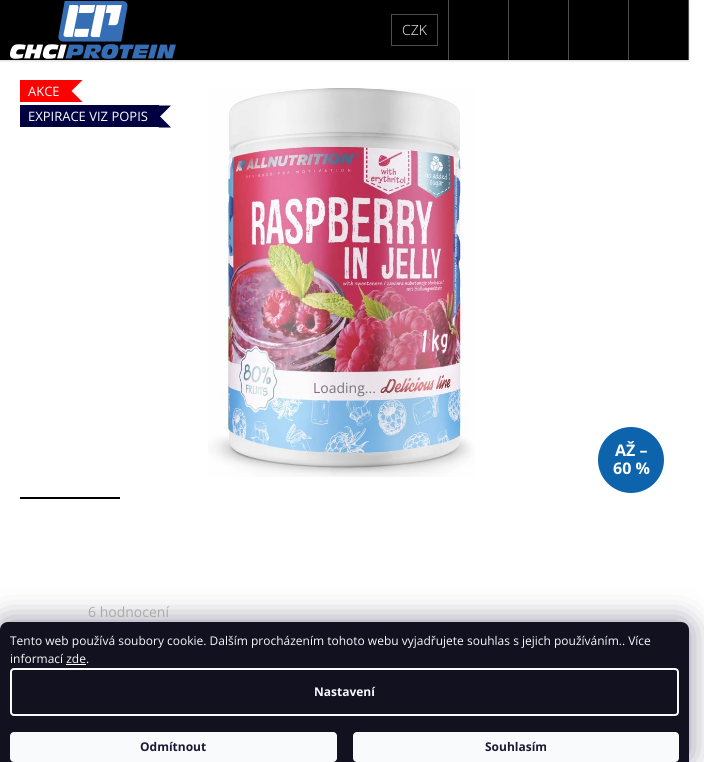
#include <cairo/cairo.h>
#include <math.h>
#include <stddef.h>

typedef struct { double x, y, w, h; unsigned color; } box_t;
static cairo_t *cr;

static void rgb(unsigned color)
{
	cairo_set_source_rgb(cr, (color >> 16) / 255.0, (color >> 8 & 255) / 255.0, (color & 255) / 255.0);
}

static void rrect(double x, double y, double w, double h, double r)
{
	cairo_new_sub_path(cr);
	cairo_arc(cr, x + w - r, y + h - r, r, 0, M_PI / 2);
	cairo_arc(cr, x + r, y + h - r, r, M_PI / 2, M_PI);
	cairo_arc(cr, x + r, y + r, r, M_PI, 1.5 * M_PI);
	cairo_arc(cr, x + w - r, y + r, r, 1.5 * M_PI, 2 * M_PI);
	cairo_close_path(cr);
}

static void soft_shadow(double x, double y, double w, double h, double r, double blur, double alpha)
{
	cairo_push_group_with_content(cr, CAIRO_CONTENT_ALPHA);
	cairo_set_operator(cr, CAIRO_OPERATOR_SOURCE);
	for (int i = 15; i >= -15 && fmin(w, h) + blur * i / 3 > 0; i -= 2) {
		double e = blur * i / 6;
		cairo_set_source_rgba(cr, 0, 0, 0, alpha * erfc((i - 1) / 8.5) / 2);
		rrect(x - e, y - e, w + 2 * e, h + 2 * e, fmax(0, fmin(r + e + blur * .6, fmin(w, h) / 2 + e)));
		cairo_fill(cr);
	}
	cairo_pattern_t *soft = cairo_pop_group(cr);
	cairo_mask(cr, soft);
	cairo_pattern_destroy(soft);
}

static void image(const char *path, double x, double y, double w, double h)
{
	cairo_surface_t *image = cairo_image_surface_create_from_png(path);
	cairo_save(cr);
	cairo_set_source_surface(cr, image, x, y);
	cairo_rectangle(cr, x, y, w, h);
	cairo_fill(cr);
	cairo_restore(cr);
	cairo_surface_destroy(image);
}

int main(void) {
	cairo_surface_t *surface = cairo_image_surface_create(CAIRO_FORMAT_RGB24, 704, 762);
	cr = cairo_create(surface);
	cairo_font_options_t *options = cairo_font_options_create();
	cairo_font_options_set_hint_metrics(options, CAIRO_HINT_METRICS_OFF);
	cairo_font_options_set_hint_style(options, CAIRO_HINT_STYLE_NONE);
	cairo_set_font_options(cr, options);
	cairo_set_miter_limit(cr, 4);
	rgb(0xffffff);
	cairo_paint(cr);
	rgb(0x000000);
	soft_shadow(0, 1, 689, 60, 0, 1, 0.16);
	rgb(0x000000);
	cairo_rectangle(cr, 0, 0, 688, 60);
	cairo_fill(cr);
	image("img/1.png", 10, 1, 166, 58);
	rgb(0x4d4d4d);
	cairo_rectangle(cr, 688, 0, 1, 60);
	cairo_fill(cr);
	cairo_rectangle(cr, 391.5, 14.5, 46, 31);
	cairo_set_line_width(cr, 1);
	cairo_stroke(cr);
	{
		static const box_t items[] = {
			{448, 0, 1, 60, 0x4d4d4d},
			{508, 0, 1, 60, 0x4d4d4d},
			{568, 0, 1, 60, 0x4d4d4d},
			{628, 0, 1, 60, 0x4d4d4d},
			{20, 80, 51, 22, 0xff0000},
			{20, 105, 139, 22, 0x000040},
		};
		for (size_t i = 0; i < sizeof items / sizeof *items; i++) {
			rgb(items[i].color);
			cairo_rectangle(cr, items[i].x, items[i].y, items[i].w, items[i].h);
			cairo_fill(cr);
		}
	}
	image("img/2.png", 208, 88, 267, 389);
	rgb(0x0d64ad);
	cairo_arc(cr, 631, 460, 33, 0, 2 * M_PI);
	cairo_fill(cr);
	rgb(0x000000);
	cairo_rectangle(cr, 20, 497, 100, 2);
	cairo_fill(cr);
	rgb(0x1b1939);
	soft_shadow(0, 622, 689, 140, 8, 15, 0.5);
	rgb(0x11111f);
	cairo_new_path(cr);
	cairo_move_to(cr, 8, 622);
	cairo_line_to(cr, 681, 622);
	cairo_curve_to(cr, 685.5, 622, 689, 625.5, 689, 630);
	cairo_line_to(cr, 689, 762);
	cairo_line_to(cr, 0, 762);
	cairo_line_to(cr, 0, 630);
	cairo_curve_to(cr, 0, 625.5, 3.5, 622, 8, 622);
	cairo_close_path(cr);
	cairo_fill(cr);
	rgb(0xf8fafb);
	cairo_rectangle(cr, 66, 664, 20, 1);
	cairo_fill(cr);
	rrect(11, 669, 667, 46, 3);
	cairo_set_line_width(cr, 2);
	cairo_stroke(cr);
	rrect(10, 732, 327, 30, 4);
	cairo_fill(cr);
	rrect(353, 732, 326, 30, 4);
	cairo_fill(cr);
	cairo_select_font_face(cr, "Open Sans Light", CAIRO_FONT_SLANT_NORMAL, CAIRO_FONT_WEIGHT_NORMAL);
	cairo_set_font_size(cr, 14);
	rgb(0xffffff);
	cairo_move_to(cr, 402, 35);
	cairo_show_text(cr, "CZK");
	cairo_select_font_face(cr, "Open Sans", CAIRO_FONT_SLANT_NORMAL, CAIRO_FONT_WEIGHT_NORMAL);
	cairo_set_font_size(cr, 13);
	cairo_move_to(cr, 28, 96);
	cairo_show_text(cr, "AKCE");
	rgb(0xff0000);
	cairo_new_path(cr);
	cairo_move_to(cr, 58.5, 90);
	cairo_line_to(cr, 70.5, 90);
	cairo_line_to(cr, 82.5, 102);
	cairo_line_to(cr, 70.5, 102);
	cairo_close_path(cr);
	cairo_fill(cr);
	cairo_new_path(cr);
	cairo_move_to(cr, 70.5, 80);
	cairo_line_to(cr, 82.5, 80);
	cairo_line_to(cr, 70.5, 92);
	cairo_line_to(cr, 58.5, 92);
	cairo_close_path(cr);
	cairo_fill(cr);
	rgb(0xffffff);
	cairo_move_to(cr, 28, 121);
	cairo_show_text(cr, "EXPIRACE VIZ POPIS");
	rgb(0x000040);
	cairo_new_path(cr);
	cairo_move_to(cr, 147, 115.5);
	cairo_line_to(cr, 159, 115.5);
	cairo_line_to(cr, 171, 127.5);
	cairo_line_to(cr, 159, 127.5);
	cairo_close_path(cr);
	cairo_fill(cr);
	cairo_new_path(cr);
	cairo_move_to(cr, 159, 105.5);
	cairo_line_to(cr, 171, 105.5);
	cairo_line_to(cr, 159, 117.5);
	cairo_line_to(cr, 147, 117.5);
	cairo_close_path(cr);
	cairo_fill(cr);
	cairo_set_font_size(cr, 14);
	rgb(0x777477);
	cairo_move_to(cr, 313, 393);
	cairo_show_text(cr, "Loading...");
	cairo_select_font_face(cr, "Open Sans", CAIRO_FONT_SLANT_NORMAL, CAIRO_FONT_WEIGHT_BOLD);
	cairo_set_font_size(cr, 16);
	rgb(0xffffff);
	cairo_move_to(cr, 615, 456);
	cairo_show_text(cr, "AŽ –");
	cairo_move_to(cr, 613, 474);
	cairo_show_text(cr, "60 %");
	cairo_select_font_face(cr, "Open Sans", CAIRO_FONT_SLANT_NORMAL, CAIRO_FONT_WEIGHT_NORMAL);
	cairo_set_font_size(cr, 14);
	rgb(0xaaaaaa);
	cairo_move_to(cr, 88, 617);
	cairo_show_text(cr, "6 hodnocení");
	cairo_set_font_size(cr, 12);
	rgb(0xf8fafb);
	cairo_move_to(cr, 10, 645);
	cairo_show_text(cr, "Tento web používá soubory cookie. Dalším procházením tohoto webu vyjadřujete souhlas s jejich používáním.. Více");
	cairo_move_to(cr, 10, 663);
	cairo_show_text(cr, "informací zde.");
	cairo_select_font_face(cr, "Open Sans", CAIRO_FONT_SLANT_NORMAL, CAIRO_FONT_WEIGHT_BOLD);
	cairo_move_to(cr, 314, 696);
	cairo_show_text(cr, "Nastavení");
	rgb(0x1a1937);
	cairo_move_to(cr, 140, 751);
	cairo_show_text(cr, "Odmítnout");
	cairo_move_to(cr, 485, 751);
	cairo_show_text(cr, "Souhlasím");
	cairo_surface_write_to_png(surface, "page.png");
	cairo_font_options_destroy(options);
	cairo_destroy(cr);
	cairo_surface_destroy(surface);
	return 0;
}
